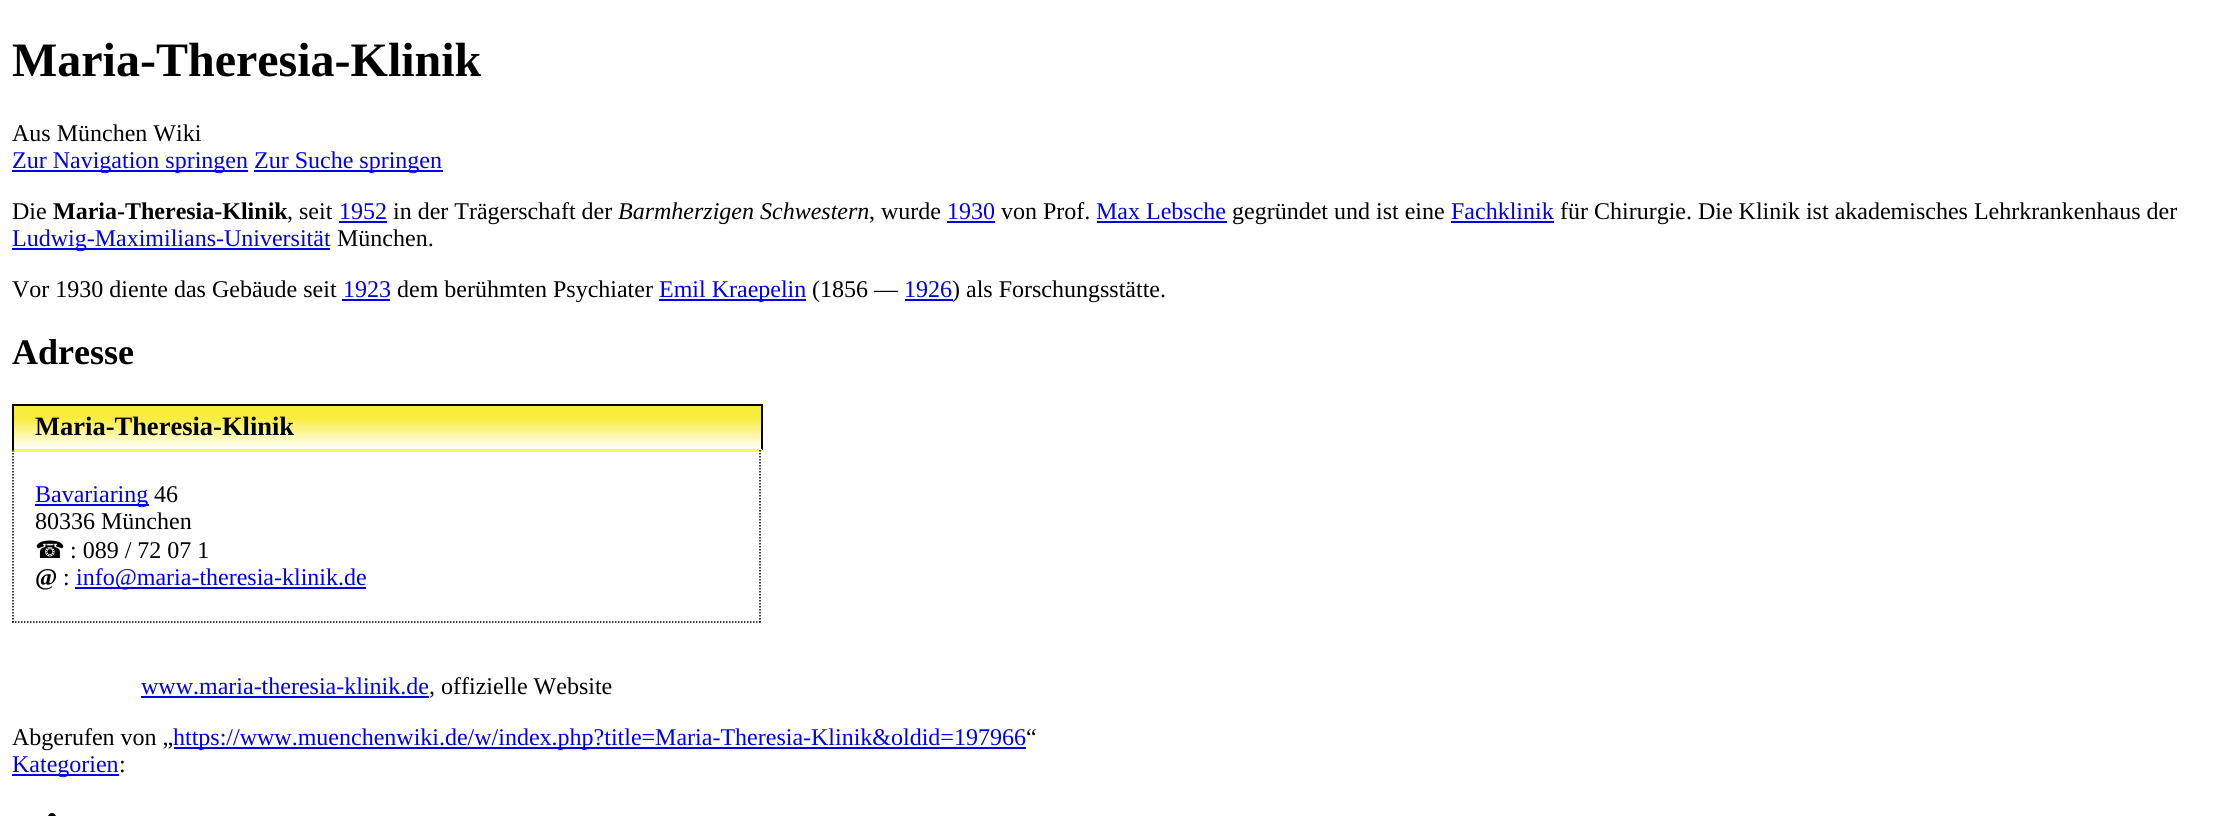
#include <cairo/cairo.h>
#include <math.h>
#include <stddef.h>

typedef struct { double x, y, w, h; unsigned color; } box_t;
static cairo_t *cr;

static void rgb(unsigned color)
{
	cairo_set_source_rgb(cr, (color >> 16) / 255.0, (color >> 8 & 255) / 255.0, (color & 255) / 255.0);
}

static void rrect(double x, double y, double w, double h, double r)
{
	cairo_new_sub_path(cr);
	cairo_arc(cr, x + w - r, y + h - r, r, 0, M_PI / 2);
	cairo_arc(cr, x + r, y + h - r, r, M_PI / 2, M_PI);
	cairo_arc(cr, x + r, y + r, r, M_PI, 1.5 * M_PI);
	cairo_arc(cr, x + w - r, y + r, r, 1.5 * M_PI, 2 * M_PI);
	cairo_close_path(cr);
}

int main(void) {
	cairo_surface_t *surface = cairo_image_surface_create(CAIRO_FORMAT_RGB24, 2237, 816);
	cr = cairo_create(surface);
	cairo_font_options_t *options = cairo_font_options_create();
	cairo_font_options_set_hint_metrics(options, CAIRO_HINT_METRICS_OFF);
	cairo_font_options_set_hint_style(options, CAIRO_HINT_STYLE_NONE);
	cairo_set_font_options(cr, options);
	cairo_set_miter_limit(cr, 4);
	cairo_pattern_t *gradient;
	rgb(0xffffff);
	cairo_paint(cr);
	{
		static const box_t items[] = {
			{12, 170, 236, 2, 0x0000ee},
			{254, 170, 189, 2, 0x0000ee},
			{339, 221, 48, 2, 0x0000ee},
			{947, 221, 48, 2, 0x0000ee},
			{1097, 221, 130, 2, 0x0000ee},
			{1451, 221, 103, 2, 0x0000ee},
			{12, 248, 318, 2, 0x0000ee},
			{342, 299, 48, 2, 0x0000ee},
			{659, 299, 147, 2, 0x0000ee},
			{905, 299, 48, 2, 0x0000ee},
		};
		for (size_t i = 0; i < sizeof items / sizeof *items; i++) {
			rgb(items[i].color);
			cairo_rectangle(cr, items[i].x, items[i].y, items[i].w, items[i].h);
			cairo_fill(cr);
		}
	}
	gradient = cairo_pattern_create_linear(387, 449, 387, 405);
	cairo_pattern_add_color_stop_rgba(gradient, 0, 1, 1, 1, 1);
	cairo_pattern_add_color_stop_rgba(gradient, 0.71, 0.973, 0.929, 0.235, 1);
	cairo_set_source(cr, gradient);
	cairo_pattern_destroy(gradient);
	cairo_rectangle(cr, 14, 406, 747, 43);
	cairo_fill(cr);
	{
		static const box_t items[] = {
			{12, 404, 750, 2, 0x000000},
			{761, 404, 2, 46, 0x000000},
			{12, 449, 750, 2, 0xf4fa58},
			{12, 404, 2, 46, 0x000000},
			{12, 451, 749, 1, 0xf4fa58},
		};
		for (size_t i = 0; i < sizeof items / sizeof *items; i++) {
			rgb(items[i].color);
			cairo_rectangle(cr, items[i].x, items[i].y, items[i].w, items[i].h);
			cairo_fill(cr);
		}
	}
	cairo_new_path(cr);
	cairo_move_to(cr, 760, 450);
	cairo_line_to(cr, 760, 622.5);
	rgb(0x000000);
	cairo_set_line_width(cr, 1.5);
	cairo_set_dash(cr, (double[]){1.5, 1.5}, 2, 0);
	cairo_stroke(cr);
	cairo_new_path(cr);
	cairo_move_to(cr, 12, 622);
	cairo_line_to(cr, 760.5, 622);
	cairo_stroke(cr);
	cairo_new_path(cr);
	cairo_move_to(cr, 13, 450);
	cairo_line_to(cr, 13, 622.5);
	cairo_stroke(cr);
	{
		static const box_t items[] = {
			{35, 504, 114, 2, 0x0000ee},
			{75, 587, 291, 2, 0x0000ee},
			{141, 696, 288, 2, 0x0000ee},
			{174, 747, 852, 2, 0x0000ee},
			{12, 774, 107, 2, 0x0000ee},
		};
		for (size_t i = 0; i < sizeof items / sizeof *items; i++) {
			rgb(items[i].color);
			cairo_rectangle(cr, items[i].x, items[i].y, items[i].w, items[i].h);
			cairo_fill(cr);
		}
	}
	rgb(0x000000);
	rrect(48, 813, 8, 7, 4);
	cairo_fill(cr);
	cairo_select_font_face(cr, "Liberation Serif", CAIRO_FONT_SLANT_NORMAL, CAIRO_FONT_WEIGHT_BOLD);
	cairo_set_font_size(cr, 48);
	cairo_move_to(cr, 12, 76);
	cairo_show_text(cr, "Maria-Theresia-Klinik");
	cairo_select_font_face(cr, "Liberation Serif", CAIRO_FONT_SLANT_NORMAL, CAIRO_FONT_WEIGHT_NORMAL);
	cairo_set_font_size(cr, 24);
	cairo_move_to(cr, 12, 141);
	cairo_show_text(cr, "Aus München Wiki");
	rgb(0x0000ee);
	cairo_move_to(cr, 12, 168);
	cairo_show_text(cr, "Zur Navigation springen");
	cairo_move_to(cr, 254, 168);
	cairo_show_text(cr, "Zur Suche springen");
	rgb(0x000000);
	cairo_move_to(cr, 12, 219);
	cairo_show_text(cr, "Die");
	cairo_select_font_face(cr, "Liberation Serif", CAIRO_FONT_SLANT_NORMAL, CAIRO_FONT_WEIGHT_BOLD);
	cairo_move_to(cr, 53, 219);
	cairo_show_text(cr, "Maria-Theresia-Klinik");
	cairo_select_font_face(cr, "Liberation Serif", CAIRO_FONT_SLANT_NORMAL, CAIRO_FONT_WEIGHT_NORMAL);
	cairo_move_to(cr, 287, 219);
	cairo_show_text(cr, ", seit");
	rgb(0x0000ee);
	cairo_move_to(cr, 339, 219);
	cairo_show_text(cr, "1952");
	rgb(0x000000);
	cairo_move_to(cr, 393, 219);
	cairo_show_text(cr, "in der Trägerschaft der");
	cairo_select_font_face(cr, "Liberation Serif", CAIRO_FONT_SLANT_ITALIC, CAIRO_FONT_WEIGHT_NORMAL);
	cairo_move_to(cr, 618, 219);
	cairo_show_text(cr, "Barmherzigen Schwestern");
	cairo_select_font_face(cr, "Liberation Serif", CAIRO_FONT_SLANT_NORMAL, CAIRO_FONT_WEIGHT_NORMAL);
	cairo_move_to(cr, 869, 219);
	cairo_show_text(cr, ", wurde");
	rgb(0x0000ee);
	cairo_move_to(cr, 947, 219);
	cairo_show_text(cr, "1930");
	rgb(0x000000);
	cairo_move_to(cr, 1001, 219);
	cairo_show_text(cr, "von Prof.");
	rgb(0x0000ee);
	cairo_move_to(cr, 1096, 219);
	cairo_show_text(cr, "Max Lebsche");
	rgb(0x000000);
	cairo_move_to(cr, 1232, 219);
	cairo_show_text(cr, "gegründet und ist eine");
	rgb(0x0000ee);
	cairo_move_to(cr, 1451, 219);
	cairo_show_text(cr, "Fachklinik");
	rgb(0x000000);
	cairo_move_to(cr, 1560, 219);
	cairo_show_text(cr, "für Chirurgie. Die Klinik ist akademisches Lehrkrankenhaus der");
	rgb(0x0000ee);
	cairo_move_to(cr, 12, 246);
	cairo_show_text(cr, "Ludwig-Maximilians-Universität");
	rgb(0x000000);
	cairo_move_to(cr, 337, 246);
	cairo_show_text(cr, "München.");
	cairo_move_to(cr, 12, 297);
	cairo_show_text(cr, "Vor 1930 diente das Gebäude seit");
	rgb(0x0000ee);
	cairo_move_to(cr, 343, 297);
	cairo_show_text(cr, "1923");
	rgb(0x000000);
	cairo_move_to(cr, 397, 297);
	cairo_show_text(cr, "dem berühmten Psychiater");
	rgb(0x0000ee);
	cairo_move_to(cr, 659, 297);
	cairo_show_text(cr, "Emil Kraepelin");
	rgb(0x000000);
	cairo_move_to(cr, 812, 297);
	cairo_show_text(cr, "(1856 —");
	rgb(0x0000ee);
	cairo_move_to(cr, 904, 297);
	cairo_show_text(cr, "1926");
	rgb(0x000000);
	cairo_move_to(cr, 952, 297);
	cairo_show_text(cr, ") als Forschungsstätte.");
	cairo_select_font_face(cr, "Liberation Serif", CAIRO_FONT_SLANT_NORMAL, CAIRO_FONT_WEIGHT_BOLD);
	cairo_set_font_size(cr, 36);
	cairo_move_to(cr, 12, 364);
	cairo_show_text(cr, "Adresse");
	cairo_set_font_size(cr, 26.5);
	cairo_move_to(cr, 35, 435);
	cairo_show_text(cr, "Maria-Theresia-Klinik");
	cairo_select_font_face(cr, "Liberation Serif", CAIRO_FONT_SLANT_NORMAL, CAIRO_FONT_WEIGHT_NORMAL);
	cairo_set_font_size(cr, 24);
	rgb(0x0000ee);
	cairo_move_to(cr, 35, 502);
	cairo_show_text(cr, "Bavariaring");
	rgb(0x000000);
	cairo_move_to(cr, 154, 502);
	cairo_show_text(cr, "46");
	cairo_move_to(cr, 35, 529);
	cairo_show_text(cr, "80336 München");
	cairo_select_font_face(cr, "DejaVu Sans", CAIRO_FONT_SLANT_NORMAL, CAIRO_FONT_WEIGHT_NORMAL);
	cairo_move_to(cr, 35, 558);
	cairo_show_text(cr, "☎");
	cairo_select_font_face(cr, "Liberation Serif", CAIRO_FONT_SLANT_NORMAL, CAIRO_FONT_WEIGHT_NORMAL);
	cairo_move_to(cr, 70, 558);
	cairo_show_text(cr, ": 089 / 72 07 1");
	cairo_select_font_face(cr, "Liberation Serif", CAIRO_FONT_SLANT_NORMAL, CAIRO_FONT_WEIGHT_BOLD);
	cairo_move_to(cr, 35, 585);
	cairo_show_text(cr, "@");
	cairo_select_font_face(cr, "Liberation Serif", CAIRO_FONT_SLANT_NORMAL, CAIRO_FONT_WEIGHT_NORMAL);
	cairo_move_to(cr, 63, 585);
	cairo_show_text(cr, ":");
	rgb(0x0000ee);
	cairo_move_to(cr, 76, 585);
	cairo_show_text(cr, "info@maria-theresia-klinik.de");
	cairo_move_to(cr, 141, 694);
	cairo_show_text(cr, "www.maria-theresia-klinik.de");
	rgb(0x000000);
	cairo_move_to(cr, 429, 694);
	cairo_show_text(cr, ", offizielle Website");
	cairo_move_to(cr, 12, 745);
	cairo_show_text(cr, "Abgerufen von „");
	rgb(0x0000ee);
	cairo_move_to(cr, 173, 745);
	cairo_show_text(cr, "https://www.muenchenwiki.de/w/index.php?title=Maria-Theresia-Klinik&oldid=197966");
	rgb(0x000000);
	cairo_move_to(cr, 1026, 745);
	cairo_show_text(cr, "“");
	rgb(0x0000ee);
	cairo_move_to(cr, 12, 772);
	cairo_show_text(cr, "Kategorien");
	rgb(0x000000);
	cairo_move_to(cr, 119, 772);
	cairo_show_text(cr, ":");
	cairo_surface_write_to_png(surface, "page.png");
	cairo_font_options_destroy(options);
	cairo_destroy(cr);
	cairo_surface_destroy(surface);
	return 0;
}
